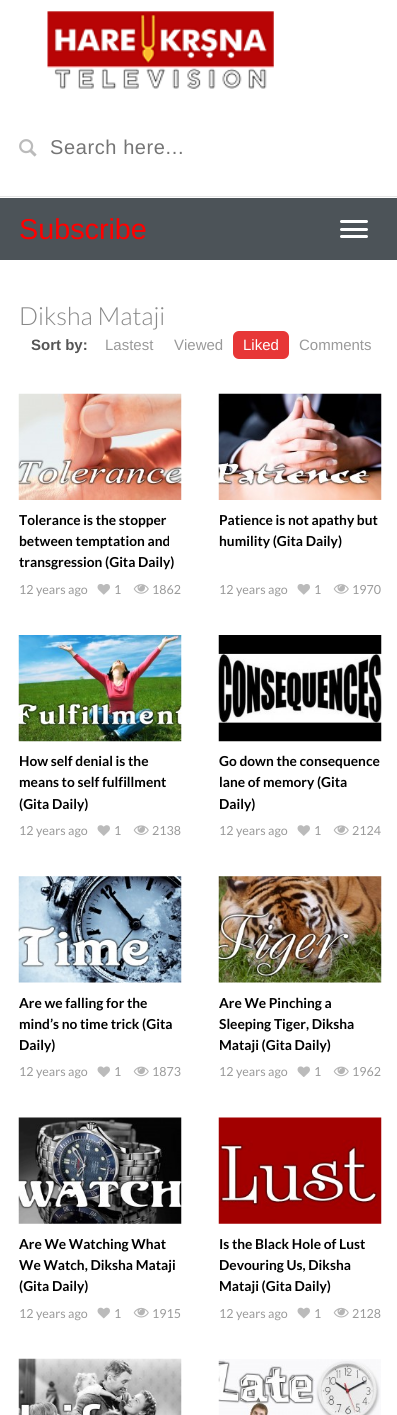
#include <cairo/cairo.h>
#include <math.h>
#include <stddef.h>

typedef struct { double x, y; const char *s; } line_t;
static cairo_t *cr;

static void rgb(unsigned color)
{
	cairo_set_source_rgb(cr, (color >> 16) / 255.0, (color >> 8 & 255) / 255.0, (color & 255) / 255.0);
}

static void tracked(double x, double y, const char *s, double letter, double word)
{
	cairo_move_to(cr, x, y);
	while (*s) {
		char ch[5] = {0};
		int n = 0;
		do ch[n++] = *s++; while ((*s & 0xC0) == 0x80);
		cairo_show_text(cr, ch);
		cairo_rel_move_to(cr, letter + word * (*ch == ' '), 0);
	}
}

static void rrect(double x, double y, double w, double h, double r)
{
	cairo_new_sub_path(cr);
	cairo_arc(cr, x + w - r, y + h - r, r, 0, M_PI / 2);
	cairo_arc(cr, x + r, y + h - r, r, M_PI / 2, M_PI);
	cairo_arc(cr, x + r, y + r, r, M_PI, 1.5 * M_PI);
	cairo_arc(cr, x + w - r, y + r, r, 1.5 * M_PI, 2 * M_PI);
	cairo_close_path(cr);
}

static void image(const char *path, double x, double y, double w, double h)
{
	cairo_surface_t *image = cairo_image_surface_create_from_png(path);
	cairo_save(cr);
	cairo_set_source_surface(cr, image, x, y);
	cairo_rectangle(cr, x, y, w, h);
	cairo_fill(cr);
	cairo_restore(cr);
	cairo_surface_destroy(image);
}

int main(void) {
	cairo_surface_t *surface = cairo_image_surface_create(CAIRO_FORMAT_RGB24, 397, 1415);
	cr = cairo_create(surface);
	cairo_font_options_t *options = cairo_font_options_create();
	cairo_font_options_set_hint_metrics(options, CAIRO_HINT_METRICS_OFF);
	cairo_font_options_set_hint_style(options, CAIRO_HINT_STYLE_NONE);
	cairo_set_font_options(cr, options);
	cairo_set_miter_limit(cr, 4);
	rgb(0xffffff);
	cairo_paint(cr);
	rgb(0xe5e5e5);
	cairo_rectangle(cr, 0, 196, 397, 1);
	cairo_fill(cr);
	image("img/1.png", 47, 11, 227, 78);
	image("img/2.png", 19, 139, 18, 18);
	rgb(0x4c5358);
	cairo_rectangle(cr, 0, 198, 397, 62);
	cairo_fill(cr);
	rgb(0xffffff);
	rrect(340, 220, 28, 3, 1.5);
	cairo_fill(cr);
	rrect(340, 228, 28, 3, 1.5);
	cairo_fill(cr);
	rrect(340, 235, 28, 3, 1.5);
	cairo_fill(cr);
	rgb(0xe73737);
	rrect(233, 331, 56, 28, 6);
	cairo_fill(cr);
	image("img/3.png", 18, 393, 164, 107);
	image("img/4.png", 97, 584, 13, 11);
	image("img/5.png", 133, 584, 16, 10);
	image("img/6.png", 218, 393, 164, 107);
	image("img/4.png", 297, 584, 13, 11);
	image("img/5.png", 333, 584, 16, 10);
	image("img/7.png", 18, 635, 164, 107);
	image("img/8.png", 97, 825, 13, 11);
	image("img/9.png", 133, 825, 16, 10);
	image("img/10.png", 218, 635, 164, 107);
	image("img/8.png", 297, 825, 13, 11);
	image("img/9.png", 333, 825, 16, 10);
	image("img/11.png", 18, 876, 164, 107);
	image("img/12.png", 97, 1066, 13, 11);
	image("img/13.png", 133, 1066, 16, 11);
	image("img/14.png", 218, 876, 164, 107);
	image("img/12.png", 297, 1066, 13, 11);
	image("img/13.png", 333, 1066, 16, 11);
	image("img/15.png", 18, 1117, 164, 107);
	image("img/16.png", 97, 1307, 13, 12);
	image("img/17.png", 133, 1307, 16, 11);
	image("img/18.png", 218, 1117, 164, 107);
	image("img/16.png", 297, 1307, 13, 12);
	image("img/17.png", 333, 1307, 16, 11);
	image("img/19.png", 18, 1358, 164, 57);
	image("img/20.png", 218, 1359, 163, 56);
	cairo_select_font_face(cr, "Liberation Sans", CAIRO_FONT_SLANT_NORMAL, CAIRO_FONT_WEIGHT_NORMAL);
	cairo_set_font_size(cr, 20);
	rgb(0x757575);
	tracked(50, 154, "Search here...", 0.6, 0);
	cairo_set_font_size(cr, 28.75);
	rgb(0xff0000);
	cairo_move_to(cr, 19, 239);
	cairo_show_text(cr, "Subscribe");
	cairo_select_font_face(cr, "Lato Light", CAIRO_FONT_SLANT_NORMAL, CAIRO_FONT_WEIGHT_NORMAL);
	cairo_set_font_size(cr, 25);
	rgb(0x888888);
	cairo_move_to(cr, 19, 325);
	cairo_show_text(cr, "Diksha Mataji");
	cairo_select_font_face(cr, "Liberation Sans", CAIRO_FONT_SLANT_NORMAL, CAIRO_FONT_WEIGHT_BOLD);
	cairo_set_font_size(cr, 15);
	rgb(0x555555);
	cairo_move_to(cr, 31, 350);
	cairo_show_text(cr, "Sort by:");
	cairo_select_font_face(cr, "Liberation Sans", CAIRO_FONT_SLANT_NORMAL, CAIRO_FONT_WEIGHT_NORMAL);
	rgb(0x999999);
	cairo_move_to(cr, 105, 350);
	cairo_show_text(cr, "Lastest");
	cairo_move_to(cr, 174, 350);
	cairo_show_text(cr, "Viewed");
	rgb(0xffffff);
	cairo_move_to(cr, 243, 350);
	cairo_show_text(cr, "Liked");
	rgb(0x999999);
	cairo_move_to(cr, 299, 350);
	cairo_show_text(cr, "Comments");
	cairo_select_font_face(cr, "Lato", CAIRO_FONT_SLANT_NORMAL, CAIRO_FONT_WEIGHT_BOLD);
	cairo_set_font_size(cr, 13.75);
	rgb(0x000000);
	{
		static const line_t items[] = {
			{19, 525, "Tolerance is the stopper"},
			{19, 546, "between temptation and"},
			{19, 567, "transgression (Gita Daily)"},
		};
		for (size_t i = 0; i < sizeof items / sizeof *items; i++) {
			cairo_move_to(cr, items[i].x, items[i].y);
			cairo_show_text(cr, items[i].s);
		}
	}
	cairo_select_font_face(cr, "Lato", CAIRO_FONT_SLANT_NORMAL, CAIRO_FONT_WEIGHT_NORMAL);
	cairo_set_font_size(cr, 12.5);
	rgb(0x999999);
	{
		static const line_t items[] = {
			{19, 594, "12 years ago"},
			{114, 594, "1"},
			{152, 594, "1862"},
		};
		for (size_t i = 0; i < sizeof items / sizeof *items; i++) {
			cairo_move_to(cr, items[i].x, items[i].y);
			cairo_show_text(cr, items[i].s);
		}
	}
	cairo_select_font_face(cr, "Lato", CAIRO_FONT_SLANT_NORMAL, CAIRO_FONT_WEIGHT_BOLD);
	cairo_set_font_size(cr, 13.75);
	rgb(0x000000);
	cairo_move_to(cr, 219, 525);
	cairo_show_text(cr, "Patience is not apathy but");
	cairo_move_to(cr, 219, 546);
	cairo_show_text(cr, "humility (Gita Daily)");
	cairo_select_font_face(cr, "Lato", CAIRO_FONT_SLANT_NORMAL, CAIRO_FONT_WEIGHT_NORMAL);
	cairo_set_font_size(cr, 12.5);
	rgb(0x999999);
	{
		static const line_t items[] = {
			{219, 594, "12 years ago"},
			{314, 594, "1"},
			{352, 594, "1970"},
		};
		for (size_t i = 0; i < sizeof items / sizeof *items; i++) {
			cairo_move_to(cr, items[i].x, items[i].y);
			cairo_show_text(cr, items[i].s);
		}
	}
	cairo_select_font_face(cr, "Lato", CAIRO_FONT_SLANT_NORMAL, CAIRO_FONT_WEIGHT_BOLD);
	cairo_set_font_size(cr, 13.75);
	rgb(0x000000);
	{
		static const line_t items[] = {
			{19, 766, "How self denial is the"},
			{19, 787, "means to self fulfillment"},
			{19, 809, "(Gita Daily)"},
		};
		for (size_t i = 0; i < sizeof items / sizeof *items; i++) {
			cairo_move_to(cr, items[i].x, items[i].y);
			cairo_show_text(cr, items[i].s);
		}
	}
	cairo_select_font_face(cr, "Lato", CAIRO_FONT_SLANT_NORMAL, CAIRO_FONT_WEIGHT_NORMAL);
	cairo_set_font_size(cr, 12.5);
	rgb(0x999999);
	{
		static const line_t items[] = {
			{19, 835, "12 years ago"},
			{114, 835, "1"},
			{152, 835, "2138"},
		};
		for (size_t i = 0; i < sizeof items / sizeof *items; i++) {
			cairo_move_to(cr, items[i].x, items[i].y);
			cairo_show_text(cr, items[i].s);
		}
	}
	cairo_select_font_face(cr, "Lato", CAIRO_FONT_SLANT_NORMAL, CAIRO_FONT_WEIGHT_BOLD);
	cairo_set_font_size(cr, 13.75);
	rgb(0x000000);
	{
		static const line_t items[] = {
			{219, 766, "Go down the consequence"},
			{219, 787, "lane of memory (Gita"},
			{219, 809, "Daily)"},
		};
		for (size_t i = 0; i < sizeof items / sizeof *items; i++) {
			cairo_move_to(cr, items[i].x, items[i].y);
			cairo_show_text(cr, items[i].s);
		}
	}
	cairo_select_font_face(cr, "Lato", CAIRO_FONT_SLANT_NORMAL, CAIRO_FONT_WEIGHT_NORMAL);
	cairo_set_font_size(cr, 12.5);
	rgb(0x999999);
	{
		static const line_t items[] = {
			{219, 835, "12 years ago"},
			{314, 835, "1"},
			{352, 835, "2124"},
		};
		for (size_t i = 0; i < sizeof items / sizeof *items; i++) {
			cairo_move_to(cr, items[i].x, items[i].y);
			cairo_show_text(cr, items[i].s);
		}
	}
	cairo_select_font_face(cr, "Lato", CAIRO_FONT_SLANT_NORMAL, CAIRO_FONT_WEIGHT_BOLD);
	cairo_set_font_size(cr, 13.75);
	rgb(0x000000);
	{
		static const line_t items[] = {
			{19, 1008, "Are we falling for the"},
			{19, 1029, "mind’s no time trick (Gita"},
			{19, 1050, "Daily)"},
		};
		for (size_t i = 0; i < sizeof items / sizeof *items; i++) {
			cairo_move_to(cr, items[i].x, items[i].y);
			cairo_show_text(cr, items[i].s);
		}
	}
	cairo_select_font_face(cr, "Lato", CAIRO_FONT_SLANT_NORMAL, CAIRO_FONT_WEIGHT_NORMAL);
	cairo_set_font_size(cr, 12.5);
	rgb(0x999999);
	{
		static const line_t items[] = {
			{19, 1076, "12 years ago"},
			{114, 1076, "1"},
			{152, 1076, "1873"},
		};
		for (size_t i = 0; i < sizeof items / sizeof *items; i++) {
			cairo_move_to(cr, items[i].x, items[i].y);
			cairo_show_text(cr, items[i].s);
		}
	}
	cairo_select_font_face(cr, "Lato", CAIRO_FONT_SLANT_NORMAL, CAIRO_FONT_WEIGHT_BOLD);
	cairo_set_font_size(cr, 13.75);
	rgb(0x000000);
	{
		static const line_t items[] = {
			{219, 1008, "Are We Pinching a"},
			{219, 1029, "Sleeping Tiger, Diksha"},
			{219, 1050, "Mataji (Gita Daily)"},
		};
		for (size_t i = 0; i < sizeof items / sizeof *items; i++) {
			cairo_move_to(cr, items[i].x, items[i].y);
			cairo_show_text(cr, items[i].s);
		}
	}
	cairo_select_font_face(cr, "Lato", CAIRO_FONT_SLANT_NORMAL, CAIRO_FONT_WEIGHT_NORMAL);
	cairo_set_font_size(cr, 12.5);
	rgb(0x999999);
	{
		static const line_t items[] = {
			{219, 1076, "12 years ago"},
			{314, 1076, "1"},
			{352, 1076, "1962"},
		};
		for (size_t i = 0; i < sizeof items / sizeof *items; i++) {
			cairo_move_to(cr, items[i].x, items[i].y);
			cairo_show_text(cr, items[i].s);
		}
	}
	cairo_select_font_face(cr, "Lato", CAIRO_FONT_SLANT_NORMAL, CAIRO_FONT_WEIGHT_BOLD);
	cairo_set_font_size(cr, 13.75);
	rgb(0x000000);
	{
		static const line_t items[] = {
			{19, 1249, "Are We Watching What"},
			{19, 1270, "We Watch, Diksha Mataji"},
			{19, 1291, "(Gita Daily)"},
		};
		for (size_t i = 0; i < sizeof items / sizeof *items; i++) {
			cairo_move_to(cr, items[i].x, items[i].y);
			cairo_show_text(cr, items[i].s);
		}
	}
	cairo_select_font_face(cr, "Lato", CAIRO_FONT_SLANT_NORMAL, CAIRO_FONT_WEIGHT_NORMAL);
	cairo_set_font_size(cr, 12.5);
	rgb(0x999999);
	{
		static const line_t items[] = {
			{19, 1318, "12 years ago"},
			{114, 1318, "1"},
			{152, 1318, "1915"},
		};
		for (size_t i = 0; i < sizeof items / sizeof *items; i++) {
			cairo_move_to(cr, items[i].x, items[i].y);
			cairo_show_text(cr, items[i].s);
		}
	}
	cairo_select_font_face(cr, "Lato", CAIRO_FONT_SLANT_NORMAL, CAIRO_FONT_WEIGHT_BOLD);
	cairo_set_font_size(cr, 13.75);
	rgb(0x000000);
	{
		static const line_t items[] = {
			{219, 1249, "Is the Black Hole of Lust"},
			{219, 1270, "Devouring Us, Diksha"},
			{219, 1291, "Mataji (Gita Daily)"},
		};
		for (size_t i = 0; i < sizeof items / sizeof *items; i++) {
			cairo_move_to(cr, items[i].x, items[i].y);
			cairo_show_text(cr, items[i].s);
		}
	}
	cairo_select_font_face(cr, "Lato", CAIRO_FONT_SLANT_NORMAL, CAIRO_FONT_WEIGHT_NORMAL);
	cairo_set_font_size(cr, 12.5);
	rgb(0x999999);
	{
		static const line_t items[] = {
			{219, 1318, "12 years ago"},
			{314, 1318, "1"},
			{352, 1318, "2128"},
		};
		for (size_t i = 0; i < sizeof items / sizeof *items; i++) {
			cairo_move_to(cr, items[i].x, items[i].y);
			cairo_show_text(cr, items[i].s);
		}
	}
	cairo_surface_write_to_png(surface, "page.png");
	cairo_font_options_destroy(options);
	cairo_destroy(cr);
	cairo_surface_destroy(surface);
	return 0;
}
